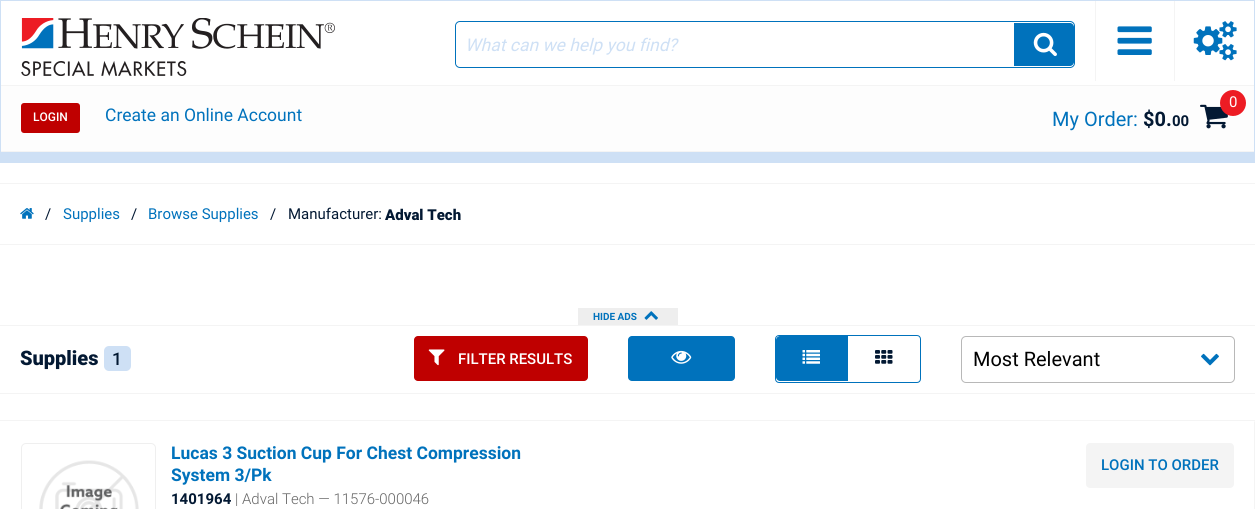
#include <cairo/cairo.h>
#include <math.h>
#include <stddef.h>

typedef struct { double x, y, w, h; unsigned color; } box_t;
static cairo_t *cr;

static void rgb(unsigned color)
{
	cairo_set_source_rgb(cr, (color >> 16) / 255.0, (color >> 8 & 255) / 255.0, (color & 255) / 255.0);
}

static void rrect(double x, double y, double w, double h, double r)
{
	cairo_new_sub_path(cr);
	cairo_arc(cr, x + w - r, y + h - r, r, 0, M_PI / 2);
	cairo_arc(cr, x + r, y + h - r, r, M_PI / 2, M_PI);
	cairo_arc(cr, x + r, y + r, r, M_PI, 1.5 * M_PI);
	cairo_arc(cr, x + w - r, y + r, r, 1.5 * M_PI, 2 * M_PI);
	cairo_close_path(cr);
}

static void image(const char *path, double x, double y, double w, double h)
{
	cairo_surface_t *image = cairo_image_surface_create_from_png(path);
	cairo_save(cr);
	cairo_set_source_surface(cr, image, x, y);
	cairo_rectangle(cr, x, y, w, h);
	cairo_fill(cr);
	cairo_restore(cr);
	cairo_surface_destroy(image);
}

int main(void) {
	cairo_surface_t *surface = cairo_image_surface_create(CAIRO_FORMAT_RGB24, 1255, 509);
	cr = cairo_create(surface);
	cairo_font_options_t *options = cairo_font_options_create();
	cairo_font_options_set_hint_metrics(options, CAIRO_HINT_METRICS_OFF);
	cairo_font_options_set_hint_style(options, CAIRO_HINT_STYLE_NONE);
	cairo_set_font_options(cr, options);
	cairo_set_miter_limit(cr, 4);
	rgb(0xf4f4f4);
	cairo_paint(cr);
	rgb(0xcee0f5);
	cairo_rectangle(cr, 0, 153, 1255, 10);
	cairo_fill(cr);
	cairo_rectangle(cr, 0.5, 0.5, 1254, 152);
	cairo_set_line_width(cr, 1);
	cairo_stroke(cr);
	rgb(0xffffff);
	cairo_rectangle(cr, 1, 1, 1253, 84);
	cairo_fill(cr);
	image("img/1.png", 21, 18, 314, 58);
	rrect(455.5, 21.5, 619, 46, 4.5);
	rgb(0x0072bc);
	cairo_stroke(cr);
	rgb(0xffffff);
	rrect(456, 23, 618, 43, 4);
	cairo_fill(cr);
	rgb(0x0072bc);
	cairo_new_path(cr);
	cairo_move_to(cr, 1014, 23);
	cairo_line_to(cr, 1070, 23);
	cairo_curve_to(cr, 1072, 23, 1074, 25, 1074, 27);
	cairo_line_to(cr, 1074, 62);
	cairo_curve_to(cr, 1074, 64, 1072, 66, 1070, 66);
	cairo_line_to(cr, 1014, 66);
	cairo_close_path(cr);
	cairo_fill(cr);
	image("img/2.png", 1033, 32, 24, 25);
	rgb(0xf4f4f4);
	cairo_rectangle(cr, 1095, 1, 1, 80);
	cairo_fill(cr);
	image("img/3.png", 1117, 26, 35, 29);
	cairo_rectangle(cr, 1174, 1, 1, 80);
	cairo_fill(cr);
	image("img/4.png", 1193, 21, 44, 40);
	rgb(0xfdfdfd);
	cairo_rectangle(cr, 1, 86, 1253, 65);
	cairo_fill(cr);
	rgb(0xbf0000);
	rrect(21, 103, 59, 30, 3);
	cairo_fill(cr);
	image("img/5.png", 1200, 104, 28, 25);
	rgb(0xed1c24);
	cairo_arc(cr, 1233, 103, 13, 0, 2 * M_PI);
	cairo_fill(cr);
	{
		static const box_t items[] = {
			{0, 163, 1255, 346, 0xffffff},
			{0, 183, 1255, 1, 0xf4f4f4},
			{0, 244, 1255, 1, 0xf4f4f4},
		};
		for (size_t i = 0; i < sizeof items / sizeof *items; i++) {
			rgb(items[i].color);
			cairo_rectangle(cr, items[i].x, items[i].y, items[i].w, items[i].h);
			cairo_fill(cr);
		}
	}
	image("img/6.png", 20, 208, 14, 11);
	cairo_rectangle(cr, 0, 325, 1255, 1);
	cairo_fill(cr);
	rgb(0xeeeeee);
	cairo_rectangle(cr, 578, 308, 100, 17);
	cairo_fill(cr);
	image("img/7.png", 644, 311, 14, 9);
	rgb(0xf4f4f4);
	cairo_rectangle(cr, 0, 393, 1255, 1);
	cairo_fill(cr);
	rgb(0xcee0f5);
	rrect(104, 346, 27, 25, 5);
	cairo_fill(cr);
	rgb(0xbf0000);
	rrect(414, 336, 174, 45, 4);
	cairo_fill(cr);
	image("img/8.png", 428, 349, 17, 17);
	rgb(0x0072bc);
	rrect(628, 336, 107, 45, 4);
	cairo_fill(cr);
	image("img/9.png", 671, 350, 21, 14);
	rrect(775.5, 335.5, 145, 47, 3.5);
	cairo_stroke(cr);
	cairo_new_path(cr);
	cairo_move_to(cr, 780, 336);
	cairo_line_to(cr, 848, 336);
	cairo_line_to(cr, 848, 381);
	cairo_line_to(cr, 780, 381);
	cairo_curve_to(cr, 778, 381, 776, 379, 776, 377);
	cairo_line_to(cr, 776, 340);
	cairo_curve_to(cr, 776, 338, 778, 336, 780, 336);
	cairo_close_path(cr);
	cairo_fill(cr);
	image("img/10.png", 802, 350, 18, 14);
	image("img/11.png", 875, 350, 18, 14);
	rrect(961.5, 336.5, 273, 46, 4.5);
	rgb(0xb8b8b8);
	cairo_stroke(cr);
	image("img/12.png", 1201, 353, 18, 13);
	rgb(0xf4f4f4);
	cairo_rectangle(cr, 0, 420, 1255, 1);
	cairo_fill(cr);
	cairo_new_path(cr);
	cairo_move_to(cr, 1255, 421);
	cairo_line_to(cr, 1255, 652);
	cairo_line_to(cr, 1254, 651);
	cairo_line_to(cr, 1254, 422);
	cairo_close_path(cr);
	cairo_fill(cr);
	rrect(21.5, 443.5, 134, 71, 4.5);
	rgb(0xefefef);
	cairo_stroke(cr);
	image("img/13.png", 39, 460, 100, 49);
	rgb(0xf4f4f4);
	rrect(1086, 443, 148, 45, 4);
	cairo_fill(cr);
	cairo_select_font_face(cr, "Roboto", CAIRO_FONT_SLANT_ITALIC, CAIRO_FONT_WEIGHT_NORMAL);
	cairo_set_font_size(cr, 17.5);
	rgb(0xcee0f5);
	cairo_move_to(cr, 465, 51);
	cairo_show_text(cr, "What can we help you find?");
	cairo_select_font_face(cr, "Roboto Medium", CAIRO_FONT_SLANT_NORMAL, CAIRO_FONT_WEIGHT_NORMAL);
	cairo_set_font_size(cr, 12);
	rgb(0xffffff);
	cairo_move_to(cr, 33, 121);
	cairo_show_text(cr, "LOGIN");
	cairo_select_font_face(cr, "Roboto", CAIRO_FONT_SLANT_NORMAL, CAIRO_FONT_WEIGHT_NORMAL);
	cairo_set_font_size(cr, 17.5);
	rgb(0x0072bc);
	cairo_move_to(cr, 105, 121);
	cairo_show_text(cr, "Create an Online Account");
	cairo_set_font_size(cr, 15);
	rgb(0xffffff);
	cairo_move_to(cr, 1229, 107);
	cairo_show_text(cr, "0");
	cairo_set_font_size(cr, 20);
	rgb(0x0072bc);
	cairo_move_to(cr, 1052, 126);
	cairo_show_text(cr, "My Order:");
	cairo_select_font_face(cr, "Roboto", CAIRO_FONT_SLANT_NORMAL, CAIRO_FONT_WEIGHT_BOLD);
	rgb(0x031933);
	cairo_move_to(cr, 1143, 126);
	cairo_show_text(cr, "$0.");
	cairo_set_font_size(cr, 15);
	cairo_move_to(cr, 1172, 126);
	cairo_show_text(cr, "00");
	cairo_select_font_face(cr, "Roboto", CAIRO_FONT_SLANT_NORMAL, CAIRO_FONT_WEIGHT_NORMAL);
	cairo_move_to(cr, 45, 219);
	cairo_show_text(cr, "/");
	rgb(0x0072bc);
	cairo_move_to(cr, 63, 219);
	cairo_show_text(cr, "Supplies");
	rgb(0x031933);
	cairo_move_to(cr, 131, 219);
	cairo_show_text(cr, "/");
	rgb(0x0072bc);
	cairo_move_to(cr, 148, 219);
	cairo_show_text(cr, "Browse Supplies");
	rgb(0x031933);
	cairo_move_to(cr, 270, 219);
	cairo_show_text(cr, "/");
	cairo_move_to(cr, 288, 219);
	cairo_show_text(cr, "Manufacturer:");
	cairo_select_font_face(cr, "Roboto Black", CAIRO_FONT_SLANT_NORMAL, CAIRO_FONT_WEIGHT_NORMAL);
	cairo_move_to(cr, 385, 220);
	cairo_show_text(cr, "Adval Tech");
	cairo_select_font_face(cr, "Roboto", CAIRO_FONT_SLANT_NORMAL, CAIRO_FONT_WEIGHT_BOLD);
	cairo_set_font_size(cr, 10);
	rgb(0x0072bc);
	cairo_move_to(cr, 593, 320);
	cairo_show_text(cr, "HIDE ADS");
	cairo_select_font_face(cr, "Roboto Black", CAIRO_FONT_SLANT_NORMAL, CAIRO_FONT_WEIGHT_NORMAL);
	cairo_set_font_size(cr, 20);
	rgb(0x031933);
	cairo_move_to(cr, 20, 365);
	cairo_show_text(cr, "Supplies");
	cairo_select_font_face(cr, "Roboto Medium", CAIRO_FONT_SLANT_NORMAL, CAIRO_FONT_WEIGHT_NORMAL);
	cairo_set_font_size(cr, 17.5);
	cairo_move_to(cr, 112, 365);
	cairo_show_text(cr, "1");
	cairo_set_font_size(cr, 15);
	rgb(0xffffff);
	cairo_move_to(cr, 458, 364);
	cairo_show_text(cr, "FILTER RESULTS");
	cairo_select_font_face(cr, "Roboto", CAIRO_FONT_SLANT_NORMAL, CAIRO_FONT_WEIGHT_NORMAL);
	cairo_set_font_size(cr, 20);
	rgb(0x000000);
	cairo_move_to(cr, 973, 366);
	cairo_show_text(cr, "Most Relevant");
	cairo_select_font_face(cr, "Roboto", CAIRO_FONT_SLANT_NORMAL, CAIRO_FONT_WEIGHT_BOLD);
	cairo_set_font_size(cr, 17.5);
	rgb(0x0072bc);
	cairo_move_to(cr, 171, 459);
	cairo_show_text(cr, "Lucas 3 Suction Cup For Chest Compression");
	cairo_move_to(cr, 171, 481);
	cairo_show_text(cr, "System 3/Pk");
	cairo_set_font_size(cr, 15);
	rgb(0x031933);
	cairo_move_to(cr, 171, 504);
	cairo_show_text(cr, "1401964");
	cairo_select_font_face(cr, "Roboto Light", CAIRO_FONT_SLANT_NORMAL, CAIRO_FONT_WEIGHT_NORMAL);
	rgb(0x666666);
	cairo_move_to(cr, 235, 504);
	cairo_show_text(cr, "| Adval Tech — 11576-000046");
	cairo_select_font_face(cr, "Roboto Medium", CAIRO_FONT_SLANT_NORMAL, CAIRO_FONT_WEIGHT_NORMAL);
	rgb(0x0072bc);
	cairo_move_to(cr, 1101, 470);
	cairo_show_text(cr, "LOGIN TO ORDER");
	cairo_surface_write_to_png(surface, "page.png");
	cairo_font_options_destroy(options);
	cairo_destroy(cr);
	cairo_surface_destroy(surface);
	return 0;
}
